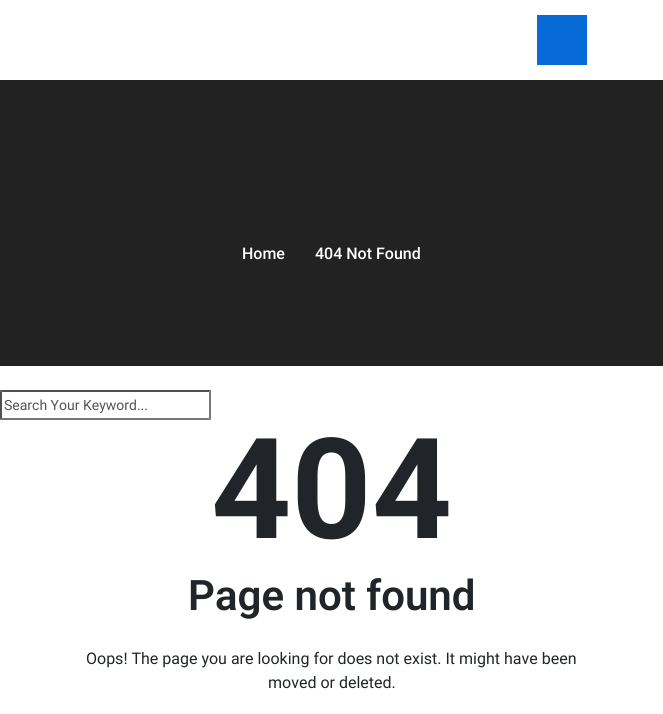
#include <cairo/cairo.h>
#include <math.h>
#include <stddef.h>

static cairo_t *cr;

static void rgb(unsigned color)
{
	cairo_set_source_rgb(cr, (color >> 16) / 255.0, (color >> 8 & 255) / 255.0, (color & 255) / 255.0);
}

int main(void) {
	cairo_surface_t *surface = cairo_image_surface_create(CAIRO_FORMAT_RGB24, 663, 714);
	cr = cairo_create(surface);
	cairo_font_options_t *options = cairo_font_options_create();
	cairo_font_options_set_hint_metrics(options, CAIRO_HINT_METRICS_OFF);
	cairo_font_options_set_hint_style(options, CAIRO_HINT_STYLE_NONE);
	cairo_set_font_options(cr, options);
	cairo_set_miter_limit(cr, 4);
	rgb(0xffffff);
	cairo_paint(cr);
	rgb(0x076ad7);
	cairo_rectangle(cr, 537, 15, 50, 50);
	cairo_fill(cr);
	rgb(0x222222);
	cairo_rectangle(cr, 0, 80, 663, 286);
	cairo_fill(cr);
	rgb(0x4f4f4f);
	cairo_new_path(cr);
	cairo_move_to(cr, 0, 390);
	cairo_line_to(cr, 211, 390);
	cairo_line_to(cr, 209, 392);
	cairo_line_to(cr, 2, 392);
	cairo_close_path(cr);
	cairo_fill(cr);
	rgb(0x767676);
	cairo_new_path(cr);
	cairo_move_to(cr, 211, 390);
	cairo_line_to(cr, 211, 420);
	cairo_line_to(cr, 209, 418);
	cairo_line_to(cr, 209, 392);
	cairo_close_path(cr);
	cairo_fill(cr);
	cairo_new_path(cr);
	cairo_move_to(cr, 211, 420);
	cairo_line_to(cr, 0, 420);
	cairo_line_to(cr, 2, 418);
	cairo_line_to(cr, 209, 418);
	cairo_close_path(cr);
	cairo_fill(cr);
	rgb(0x4f4f4f);
	cairo_new_path(cr);
	cairo_move_to(cr, 0, 420);
	cairo_line_to(cr, 0, 390);
	cairo_line_to(cr, 2, 392);
	cairo_line_to(cr, 2, 418);
	cairo_close_path(cr);
	cairo_fill(cr);
	cairo_select_font_face(cr, "Roboto Medium", CAIRO_FONT_SLANT_NORMAL, CAIRO_FONT_WEIGHT_NORMAL);
	cairo_set_font_size(cr, 16);
	rgb(0xffffff);
	cairo_move_to(cr, 242, 259);
	cairo_show_text(cr, "Home");
	cairo_move_to(cr, 315, 259);
	cairo_show_text(cr, "404 Not Found");
	cairo_select_font_face(cr, "Roboto", CAIRO_FONT_SLANT_NORMAL, CAIRO_FONT_WEIGHT_NORMAL);
	cairo_set_font_size(cr, 14);
	rgb(0x555555);
	cairo_move_to(cr, 4, 410);
	cairo_show_text(cr, "Search Your Keyword...");
	cairo_select_font_face(cr, "Roboto", CAIRO_FONT_SLANT_NORMAL, CAIRO_FONT_WEIGHT_BOLD);
	cairo_set_font_size(cr, 140);
	rgb(0x212529);
	cairo_move_to(cr, 211, 538);
	cairo_show_text(cr, "404");
	cairo_select_font_face(cr, "Roboto SemiBold", CAIRO_FONT_SLANT_NORMAL, CAIRO_FONT_WEIGHT_NORMAL);
	cairo_set_font_size(cr, 42);
	cairo_move_to(cr, 188, 610);
	cairo_show_text(cr, "Page not found");
	cairo_select_font_face(cr, "Roboto", CAIRO_FONT_SLANT_NORMAL, CAIRO_FONT_WEIGHT_NORMAL);
	cairo_set_font_size(cr, 16);
	cairo_move_to(cr, 86, 664);
	cairo_show_text(cr, "Oops! The page you are looking for does not exist. It might have been");
	cairo_move_to(cr, 268, 688);
	cairo_show_text(cr, "moved or deleted.");
	cairo_surface_write_to_png(surface, "page.png");
	cairo_font_options_destroy(options);
	cairo_destroy(cr);
	cairo_surface_destroy(surface);
	return 0;
}
